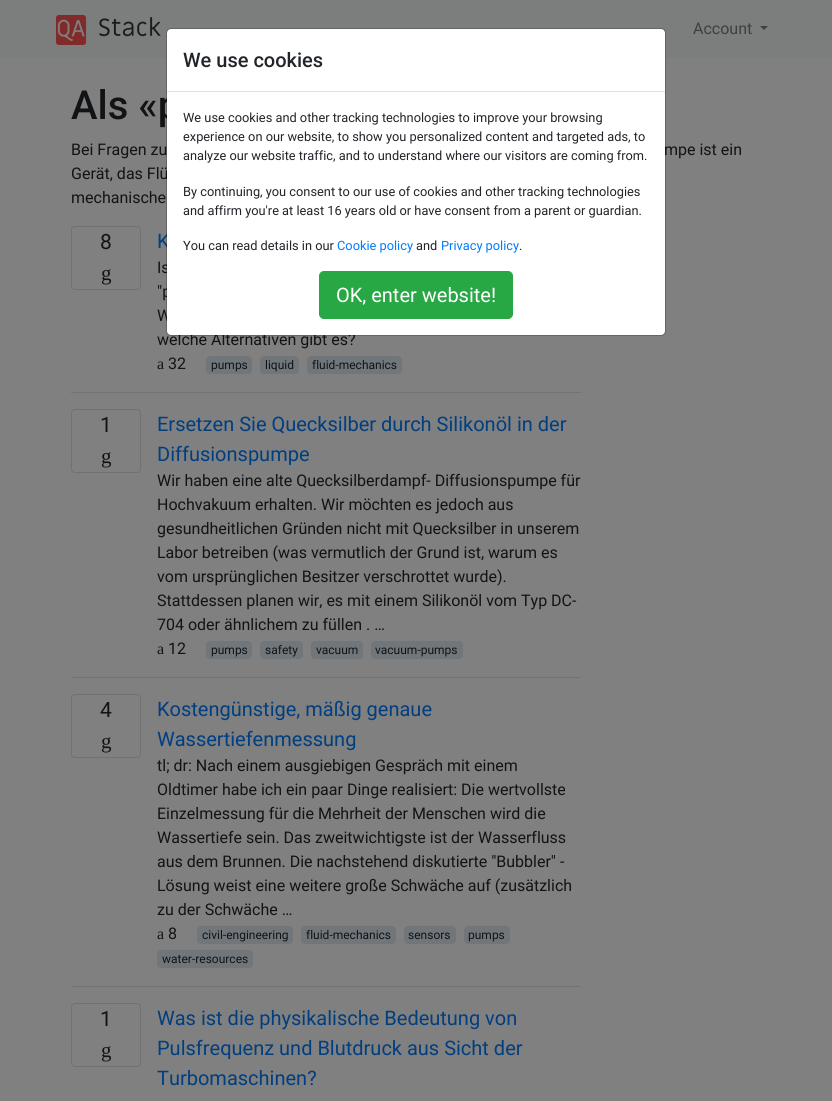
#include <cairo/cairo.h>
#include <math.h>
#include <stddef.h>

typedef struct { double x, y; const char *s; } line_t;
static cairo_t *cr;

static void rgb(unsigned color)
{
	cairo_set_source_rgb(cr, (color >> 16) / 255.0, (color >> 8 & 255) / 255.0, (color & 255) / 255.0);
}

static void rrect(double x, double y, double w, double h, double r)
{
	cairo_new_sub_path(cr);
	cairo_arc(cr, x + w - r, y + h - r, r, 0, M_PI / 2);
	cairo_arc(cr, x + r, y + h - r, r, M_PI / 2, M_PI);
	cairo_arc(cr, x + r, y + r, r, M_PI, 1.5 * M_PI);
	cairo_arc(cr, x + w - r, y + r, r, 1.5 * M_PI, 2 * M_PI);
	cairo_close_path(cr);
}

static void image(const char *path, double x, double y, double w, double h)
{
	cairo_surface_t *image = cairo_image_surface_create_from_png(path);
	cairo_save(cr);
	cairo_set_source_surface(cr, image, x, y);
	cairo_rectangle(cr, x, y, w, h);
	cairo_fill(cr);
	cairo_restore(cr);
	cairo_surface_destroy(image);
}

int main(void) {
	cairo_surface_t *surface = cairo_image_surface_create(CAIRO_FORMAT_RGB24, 832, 1101);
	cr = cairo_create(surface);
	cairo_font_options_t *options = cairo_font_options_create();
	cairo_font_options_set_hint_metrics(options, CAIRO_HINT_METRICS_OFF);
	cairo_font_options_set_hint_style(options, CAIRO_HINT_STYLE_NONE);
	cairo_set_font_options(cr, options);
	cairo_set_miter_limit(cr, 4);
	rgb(0x808080);
	cairo_paint(cr);
	rgb(0x7c7d7d);
	cairo_rectangle(cr, 0, 0, 832, 58);
	cairo_fill(cr);
	image("img/1.png", 56, 15, 105, 30);
	rgb(0x3e3f3f);
	cairo_new_path(cr);
	cairo_move_to(cr, 760, 26);
	cairo_line_to(cr, 768, 26);
	cairo_line_to(cr, 764, 30);
	cairo_close_path(cr);
	cairo_fill(cr);
	rrect(71.5, 226.5, 69, 63, 3.5);
	rgb(0x6f7173);
	cairo_set_line_width(cr, 1);
	cairo_stroke(cr);
	rgb(0x71767a);
	rrect(206, 356, 46, 18, 4);
	cairo_fill(cr);
	rrect(260, 356, 39, 18, 4);
	cairo_fill(cr);
	rrect(307, 356, 95, 18, 4);
	cairo_fill(cr);
	rgb(0x737373);
	cairo_rectangle(cr, 71, 392, 510, 1);
	cairo_fill(cr);
	rrect(71.5, 409.5, 69, 63, 3.5);
	rgb(0x6f7173);
	cairo_stroke(cr);
	rgb(0x71767a);
	rrect(206, 641, 46, 18, 4);
	cairo_fill(cr);
	rrect(260, 641, 43, 18, 4);
	cairo_fill(cr);
	rrect(311, 641, 52, 18, 4);
	cairo_fill(cr);
	rrect(371, 641, 92, 18, 4);
	cairo_fill(cr);
	rgb(0x737373);
	cairo_rectangle(cr, 71, 677, 510, 1);
	cairo_fill(cr);
	rrect(71.5, 694.5, 69, 63, 3.5);
	rgb(0x6f7173);
	cairo_stroke(cr);
	rgb(0x71767a);
	rrect(197, 926, 96, 18, 4);
	cairo_fill(cr);
	rrect(301, 926, 95, 18, 4);
	cairo_fill(cr);
	rrect(404, 926, 52, 18, 4);
	cairo_fill(cr);
	rrect(464, 926, 46, 18, 4);
	cairo_fill(cr);
	rrect(157, 950, 96, 18, 4);
	cairo_fill(cr);
	rgb(0x737373);
	cairo_rectangle(cr, 71, 986, 510, 1);
	cairo_fill(cr);
	rrect(71.5, 1003.5, 69, 63, 3.5);
	rgb(0x6f7173);
	cairo_stroke(cr);
	cairo_select_font_face(cr, "Roboto", CAIRO_FONT_SLANT_NORMAL, CAIRO_FONT_WEIGHT_NORMAL);
	cairo_set_font_size(cr, 16);
	rgb(0x3e3f3f);
	cairo_move_to(cr, 693, 34);
	cairo_show_text(cr, "Account");
	cairo_select_font_face(cr, "Roboto Medium", CAIRO_FONT_SLANT_NORMAL, CAIRO_FONT_WEIGHT_NORMAL);
	cairo_set_font_size(cr, 40);
	rgb(0x111315);
	cairo_move_to(cr, 71, 119);
	cairo_show_text(cr, "Als «p");
	cairo_select_font_face(cr, "Roboto", CAIRO_FONT_SLANT_NORMAL, CAIRO_FONT_WEIGHT_NORMAL);
	cairo_set_font_size(cr, 16);
	{
		static const line_t items[] = {
			{71, 155, "Bei Fragen zu"},
			{664, 155, "mpe ist ein"},
			{71, 179, "Gerät, das Flü"},
			{71, 203, "mechanische"},
		};
		for (size_t i = 0; i < sizeof items / sizeof *items; i++) {
			cairo_move_to(cr, items[i].x, items[i].y);
			cairo_show_text(cr, items[i].s);
		}
	}
	cairo_set_font_size(cr, 21);
	cairo_move_to(cr, 100, 249);
	cairo_show_text(cr, "8");
	cairo_select_font_face(cr, "Liberation Serif", CAIRO_FONT_SLANT_NORMAL, CAIRO_FONT_WEIGHT_NORMAL);
	cairo_move_to(cr, 101, 280);
	cairo_show_text(cr, "g");
	cairo_select_font_face(cr, "Roboto", CAIRO_FONT_SLANT_NORMAL, CAIRO_FONT_WEIGHT_NORMAL);
	cairo_set_font_size(cr, 20);
	rgb(0x003e80);
	cairo_move_to(cr, 157, 248);
	cairo_show_text(cr, "K");
	cairo_set_font_size(cr, 16);
	rgb(0x111315);
	{
		static const line_t items[] = {
			{157, 273, "Is"},
			{157, 297, "\"p"},
			{157, 321, "W"},
			{157, 345, "welche Alternativen gibt es?"},
		};
		for (size_t i = 0; i < sizeof items / sizeof *items; i++) {
			cairo_move_to(cr, items[i].x, items[i].y);
			cairo_show_text(cr, items[i].s);
		}
	}
	rgb(0xffffff);
	rrect(167, 29, 498, 306, 4);
	cairo_fill(cr);
	rrect(166.5, 28.5, 499, 307, 4.5);
	cairo_set_source_rgba(cr, 0, 0, 0, 0.2);
	cairo_stroke(cr);
	rgb(0x28a745);
	rrect(319.5, 271.5, 193, 47, 4.5);
	cairo_fill_preserve(cr);
	cairo_stroke(cr);
	cairo_set_font_size(cr, 20);
	rgb(0xffffff);
	cairo_move_to(cr, 336, 302);
	cairo_show_text(cr, "OK, enter website!");
	cairo_set_font_size(cr, 12.8);
	rgb(0x212529);
	cairo_move_to(cr, 519, 250);
	cairo_show_text(cr, ".");
	rgb(0x007bff);
	cairo_move_to(cr, 441, 250);
	cairo_show_text(cr, "Privacy policy");
	rgb(0x212529);
	cairo_move_to(cr, 416, 250);
	cairo_show_text(cr, "and");
	rgb(0x007bff);
	cairo_move_to(cr, 337, 250);
	cairo_show_text(cr, "Cookie policy");
	rgb(0x212529);
	{
		static const line_t items[] = {
			{183, 250, "You can read details in our"},
			{183, 215, "and affirm you're at least 16 years old or have consent from a parent or guardian."},
			{183, 196, "By continuing, you consent to our use of cookies and other tracking technologies"},
			{183, 160, "analyze our website traffic, and to understand where our visitors are coming from."},
			{183, 141, "experience on our website, to show you personalized content and targeted ads, to"},
			{183, 122, "We use cookies and other tracking technologies to improve your browsing"},
		};
		for (size_t i = 0; i < sizeof items / sizeof *items; i++) {
			cairo_move_to(cr, items[i].x, items[i].y);
			cairo_show_text(cr, items[i].s);
		}
	}
	cairo_select_font_face(cr, "Roboto Medium", CAIRO_FONT_SLANT_NORMAL, CAIRO_FONT_WEIGHT_NORMAL);
	cairo_set_font_size(cr, 20);
	cairo_move_to(cr, 183, 67);
	cairo_show_text(cr, "We use cookies");
	rgb(0xdee2e6);
	cairo_rectangle(cr, 167, 91, 498, 1);
	cairo_fill(cr);
	cairo_select_font_face(cr, "Liberation Serif", CAIRO_FONT_SLANT_NORMAL, CAIRO_FONT_WEIGHT_NORMAL);
	cairo_set_font_size(cr, 16);
	rgb(0x111315);
	cairo_move_to(cr, 157, 369);
	cairo_show_text(cr, "a");
	cairo_select_font_face(cr, "Roboto", CAIRO_FONT_SLANT_NORMAL, CAIRO_FONT_WEIGHT_NORMAL);
	cairo_move_to(cr, 168, 369);
	cairo_show_text(cr, "32");
	cairo_set_font_size(cr, 12);
	{
		static const line_t items[] = {
			{211, 369, "pumps"},
			{265, 369, "liquid"},
			{312, 369, "fluid-mechanics"},
		};
		for (size_t i = 0; i < sizeof items / sizeof *items; i++) {
			cairo_move_to(cr, items[i].x, items[i].y);
			cairo_show_text(cr, items[i].s);
		}
	}
	cairo_set_font_size(cr, 21);
	cairo_move_to(cr, 100, 432);
	cairo_show_text(cr, "1");
	cairo_select_font_face(cr, "Liberation Serif", CAIRO_FONT_SLANT_NORMAL, CAIRO_FONT_WEIGHT_NORMAL);
	cairo_move_to(cr, 101, 463);
	cairo_show_text(cr, "g");
	cairo_select_font_face(cr, "Roboto", CAIRO_FONT_SLANT_NORMAL, CAIRO_FONT_WEIGHT_NORMAL);
	cairo_set_font_size(cr, 20);
	rgb(0x003e80);
	cairo_move_to(cr, 157, 431);
	cairo_show_text(cr, "Ersetzen Sie Quecksilber durch Silikonöl in der");
	cairo_move_to(cr, 157, 461);
	cairo_show_text(cr, "Diffusionspumpe");
	cairo_set_font_size(cr, 16);
	rgb(0x111315);
	{
		static const line_t items[] = {
			{157, 486, "Wir haben eine alte Quecksilberdampf- Diffusionspumpe für"},
			{157, 510, "Hochvakuum erhalten. Wir möchten es jedoch aus"},
			{157, 534, "gesundheitlichen Gründen nicht mit Quecksilber in unserem"},
			{157, 558, "Labor betreiben (was vermutlich der Grund ist, warum es"},
			{157, 582, "vom ursprünglichen Besitzer verschrottet wurde)."},
			{157, 606, "Stattdessen planen wir, es mit einem Silikonöl vom Typ DC-"},
			{157, 630, "704 oder ähnlichem zu füllen . …"},
		};
		for (size_t i = 0; i < sizeof items / sizeof *items; i++) {
			cairo_move_to(cr, items[i].x, items[i].y);
			cairo_show_text(cr, items[i].s);
		}
	}
	cairo_select_font_face(cr, "Liberation Serif", CAIRO_FONT_SLANT_NORMAL, CAIRO_FONT_WEIGHT_NORMAL);
	cairo_move_to(cr, 157, 654);
	cairo_show_text(cr, "a");
	cairo_select_font_face(cr, "Roboto", CAIRO_FONT_SLANT_NORMAL, CAIRO_FONT_WEIGHT_NORMAL);
	cairo_move_to(cr, 168, 654);
	cairo_show_text(cr, "12");
	cairo_set_font_size(cr, 12);
	{
		static const line_t items[] = {
			{211, 654, "pumps"},
			{265, 654, "safety"},
			{316, 654, "vacuum"},
			{375, 654, "vacuum-pumps"},
		};
		for (size_t i = 0; i < sizeof items / sizeof *items; i++) {
			cairo_move_to(cr, items[i].x, items[i].y);
			cairo_show_text(cr, items[i].s);
		}
	}
	cairo_set_font_size(cr, 21);
	cairo_move_to(cr, 100, 717);
	cairo_show_text(cr, "4");
	cairo_select_font_face(cr, "Liberation Serif", CAIRO_FONT_SLANT_NORMAL, CAIRO_FONT_WEIGHT_NORMAL);
	cairo_move_to(cr, 101, 748);
	cairo_show_text(cr, "g");
	cairo_select_font_face(cr, "Roboto", CAIRO_FONT_SLANT_NORMAL, CAIRO_FONT_WEIGHT_NORMAL);
	cairo_set_font_size(cr, 20);
	rgb(0x003e80);
	cairo_move_to(cr, 157, 716);
	cairo_show_text(cr, "Kostengünstige, mäßig genaue");
	cairo_move_to(cr, 157, 746);
	cairo_show_text(cr, "Wassertiefenmessung");
	cairo_set_font_size(cr, 16);
	rgb(0x111315);
	{
		static const line_t items[] = {
			{157, 771, "tl; dr: Nach einem ausgiebigen Gespräch mit einem"},
			{157, 795, "Oldtimer habe ich ein paar Dinge realisiert: Die wertvollste"},
			{157, 819, "Einzelmessung für die Mehrheit der Menschen wird die"},
			{157, 843, "Wassertiefe sein. Das zweitwichtigste ist der Wasserfluss"},
			{157, 867, "aus dem Brunnen. Die nachstehend diskutierte \"Bubbler\" -"},
			{157, 891, "Lösung weist eine weitere große Schwäche auf (zusätzlich"},
			{157, 915, "zu der Schwäche …"},
			{168, 939, "8"},
		};
		for (size_t i = 0; i < sizeof items / sizeof *items; i++) {
			cairo_move_to(cr, items[i].x, items[i].y);
			cairo_show_text(cr, items[i].s);
		}
	}
	cairo_select_font_face(cr, "Liberation Serif", CAIRO_FONT_SLANT_NORMAL, CAIRO_FONT_WEIGHT_NORMAL);
	cairo_move_to(cr, 157, 939);
	cairo_show_text(cr, "a");
	cairo_select_font_face(cr, "Roboto", CAIRO_FONT_SLANT_NORMAL, CAIRO_FONT_WEIGHT_NORMAL);
	cairo_set_font_size(cr, 12);
	{
		static const line_t items[] = {
			{202, 939, "civil-engineering"},
			{306, 939, "fluid-mechanics"},
			{408, 939, "sensors"},
			{468, 939, "pumps"},
			{162, 963, "water-resources"},
		};
		for (size_t i = 0; i < sizeof items / sizeof *items; i++) {
			cairo_move_to(cr, items[i].x, items[i].y);
			cairo_show_text(cr, items[i].s);
		}
	}
	cairo_set_font_size(cr, 21);
	cairo_move_to(cr, 100, 1026);
	cairo_show_text(cr, "1");
	cairo_select_font_face(cr, "Liberation Serif", CAIRO_FONT_SLANT_NORMAL, CAIRO_FONT_WEIGHT_NORMAL);
	cairo_move_to(cr, 101, 1057);
	cairo_show_text(cr, "g");
	cairo_select_font_face(cr, "Roboto", CAIRO_FONT_SLANT_NORMAL, CAIRO_FONT_WEIGHT_NORMAL);
	cairo_set_font_size(cr, 20);
	rgb(0x003e80);
	{
		static const line_t items[] = {
			{157, 1025, "Was ist die physikalische Bedeutung von"},
			{157, 1055, "Pulsfrequenz und Blutdruck aus Sicht der"},
			{157, 1085, "Turbomaschinen?"},
		};
		for (size_t i = 0; i < sizeof items / sizeof *items; i++) {
			cairo_move_to(cr, items[i].x, items[i].y);
			cairo_show_text(cr, items[i].s);
		}
	}
	cairo_surface_write_to_png(surface, "page.png");
	cairo_font_options_destroy(options);
	cairo_destroy(cr);
	cairo_surface_destroy(surface);
	return 0;
}
